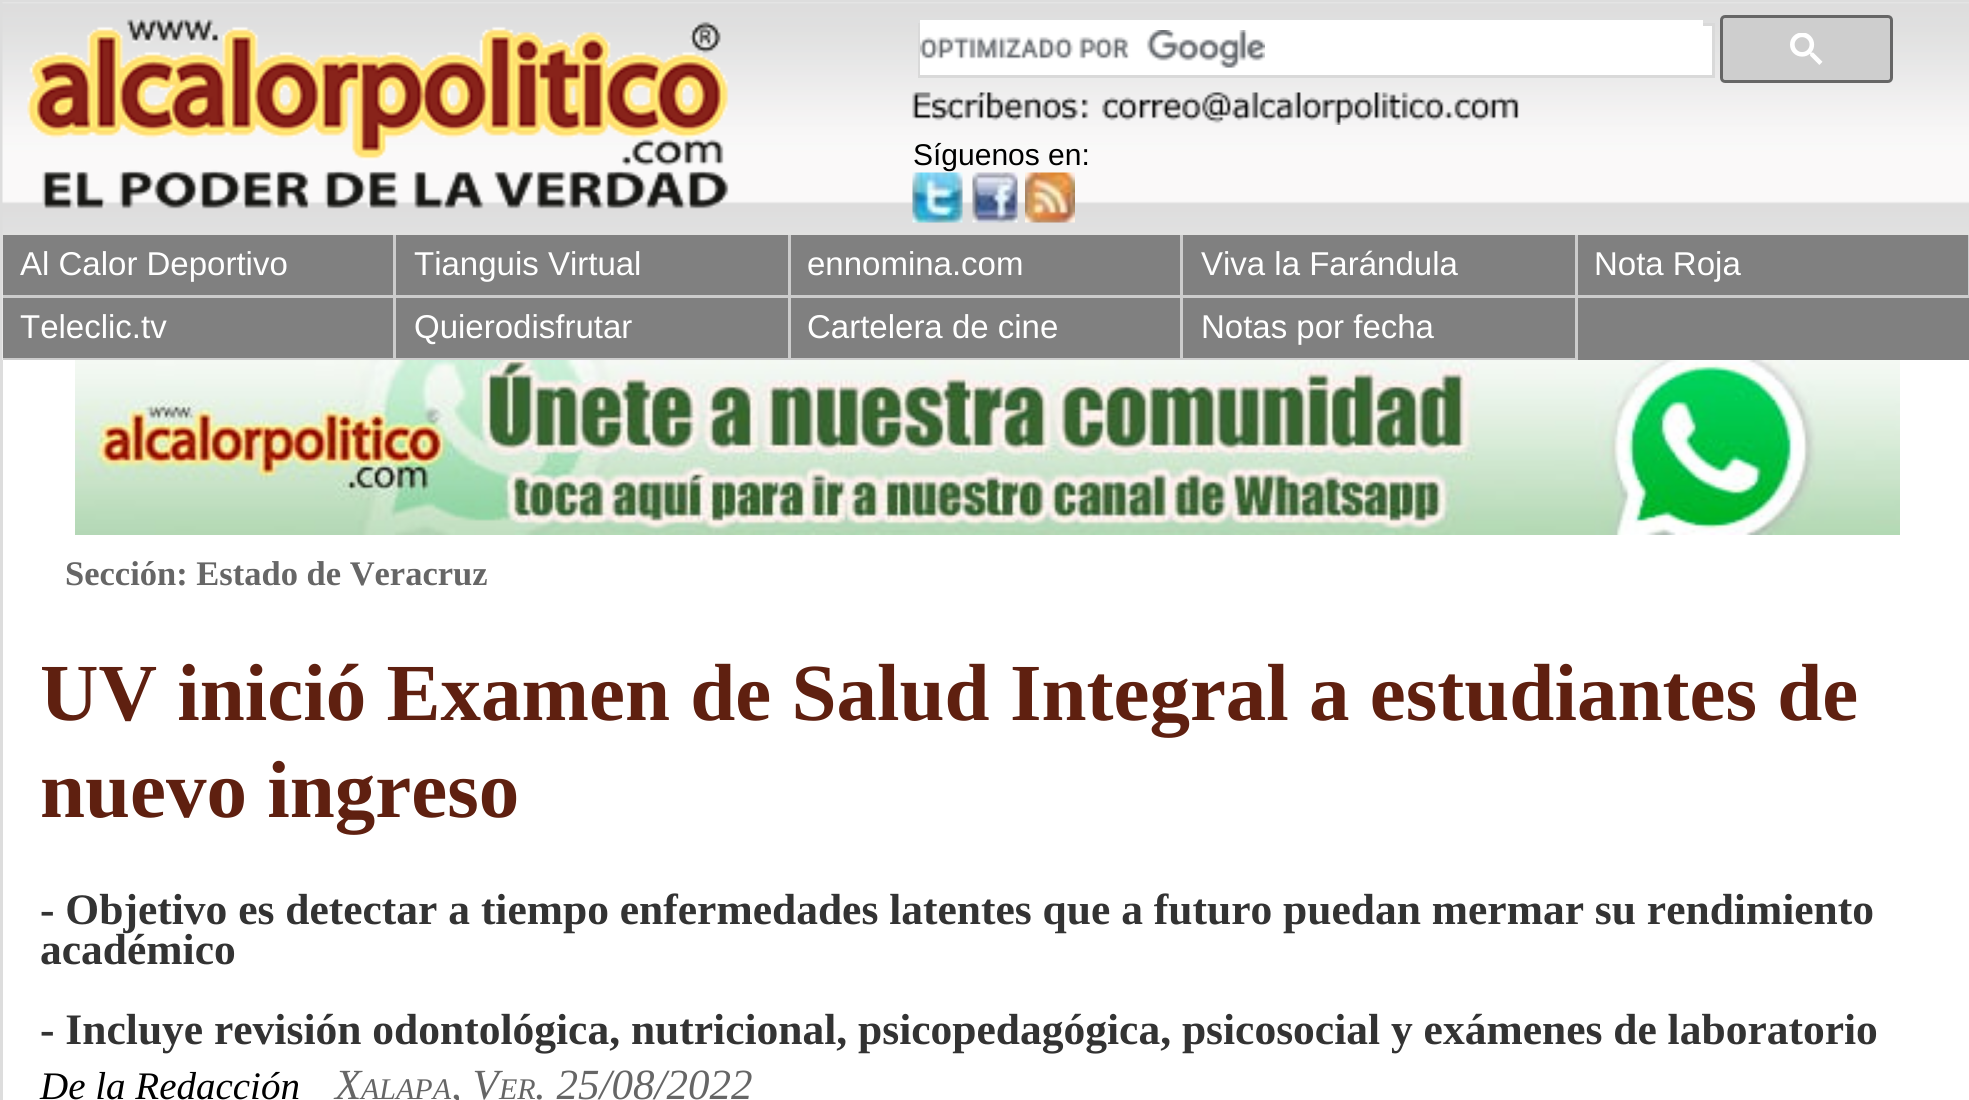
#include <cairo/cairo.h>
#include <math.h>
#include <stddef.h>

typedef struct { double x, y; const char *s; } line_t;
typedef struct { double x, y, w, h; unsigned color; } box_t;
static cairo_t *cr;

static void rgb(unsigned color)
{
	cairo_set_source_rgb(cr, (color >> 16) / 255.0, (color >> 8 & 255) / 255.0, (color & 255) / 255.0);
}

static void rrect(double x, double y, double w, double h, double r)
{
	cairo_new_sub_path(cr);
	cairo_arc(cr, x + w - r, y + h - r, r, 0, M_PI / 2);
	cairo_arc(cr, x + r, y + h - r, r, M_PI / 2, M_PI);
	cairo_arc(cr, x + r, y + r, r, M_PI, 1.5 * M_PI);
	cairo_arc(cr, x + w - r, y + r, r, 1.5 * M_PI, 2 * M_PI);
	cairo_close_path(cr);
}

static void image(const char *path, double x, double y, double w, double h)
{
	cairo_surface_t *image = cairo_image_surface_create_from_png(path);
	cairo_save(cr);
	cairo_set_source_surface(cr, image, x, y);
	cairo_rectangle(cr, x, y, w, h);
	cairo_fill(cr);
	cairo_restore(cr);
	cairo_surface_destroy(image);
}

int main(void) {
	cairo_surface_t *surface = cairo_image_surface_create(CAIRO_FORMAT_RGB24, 1969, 1100);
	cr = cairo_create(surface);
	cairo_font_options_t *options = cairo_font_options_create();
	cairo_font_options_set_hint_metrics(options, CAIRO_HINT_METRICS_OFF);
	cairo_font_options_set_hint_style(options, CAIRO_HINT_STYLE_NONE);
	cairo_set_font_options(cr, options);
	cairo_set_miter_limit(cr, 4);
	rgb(0xffffff);
	cairo_paint(cr);
	cairo_rectangle(cr, 1.5, 1.5, 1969, 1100);
	rgb(0xdddddd);
	cairo_set_line_width(cr, 3);
	cairo_stroke(cr);
	image("img/1.png", 2, 2, 1967, 358);
	image("img/2.png", 27, 19, 702, 190);
	rgb(0xffffff);
	cairo_rectangle(cr, 1703, 26, 9, 49);
	cairo_fill(cr);
	cairo_rectangle(cr, 919.5, 24.5, 794, 52);
	rgb(0xd9d9d9);
	cairo_stroke(cr);
	rgb(0xffffff);
	cairo_rectangle(cr, 920, 20, 783, 55);
	cairo_fill(cr);
	image("img/3.png", 920, 30, 345, 38);
	rgb(0xcecece);
	rrect(1721.5, 16.5, 170, 65, 3.5);
	cairo_fill_preserve(cr);
	rgb(0x666666);
	cairo_stroke(cr);
	image("img/4.png", 1790, 33, 33, 32);
	image("img/5.png", 912, 92, 607, 33);
	image("img/6.png", 912, 172, 51, 51);
	image("img/7.png", 972, 172, 46, 51);
	image("img/8.png", 1025, 172, 50, 51);
	{
		static const box_t items[] = {
			{3, 235, 1966, 125, 0x808080},
			{393, 235, 3, 125, 0xcccccc},
			{3, 295, 392, 3, 0xcccccc},
			{788, 235, 3, 125, 0xcccccc},
			{395, 295, 395, 3, 0xcccccc},
			{1180, 235, 3, 125, 0xcccccc},
			{790, 295, 393, 3, 0xcccccc},
			{1575, 235, 3, 125, 0xcccccc},
			{1183, 295, 395, 3, 0xcccccc},
			{1968, 235, 1, 63, 0xcccccc},
			{1578, 295, 391, 3, 0xcccccc},
			{3, 358, 1575, 2, 0xcccccc},
		};
		for (size_t i = 0; i < sizeof items / sizeof *items; i++) {
			rgb(items[i].color);
			cairo_rectangle(cr, items[i].x, items[i].y, items[i].w, items[i].h);
			cairo_fill(cr);
		}
	}
	image("img/9.png", 75, 360, 1825, 175);
	cairo_select_font_face(cr, "Liberation Sans", CAIRO_FONT_SLANT_NORMAL, CAIRO_FONT_WEIGHT_NORMAL);
	cairo_set_font_size(cr, 30);
	rgb(0x000000);
	cairo_move_to(cr, 913, 165);
	cairo_show_text(cr, "Síguenos en:");
	cairo_set_font_size(cr, 33);
	rgb(0xffffff);
	{
		static const line_t items[] = {
			{20, 275, "Al Calor Deportivo"},
			{414, 275, "Tianguis Virtual"},
			{807, 275, "ennomina.com"},
			{1201, 275, "Viva la Farándula"},
			{1594, 275, "Nota Roja"},
			{20, 338, "Teleclic.tv"},
			{414, 338, "Quierodisfrutar"},
			{807, 338, "Cartelera de cine"},
			{1201, 338, "Notas por fecha"},
		};
		for (size_t i = 0; i < sizeof items / sizeof *items; i++) {
			cairo_move_to(cr, items[i].x, items[i].y);
			cairo_show_text(cr, items[i].s);
		}
	}
	cairo_select_font_face(cr, "Liberation Serif", CAIRO_FONT_SLANT_NORMAL, CAIRO_FONT_WEIGHT_BOLD);
	cairo_set_font_size(cr, 34.5);
	rgb(0x666666);
	cairo_move_to(cr, 65, 585);
	cairo_show_text(cr, "Sección: Estado de Veracruz");
	cairo_set_font_size(cr, 81);
	rgb(0x5f2010);
	cairo_move_to(cr, 40, 720);
	cairo_show_text(cr, "UV inició Examen de Salud Integral a estudiantes de");
	cairo_move_to(cr, 40, 817);
	cairo_show_text(cr, "nuevo ingreso");
	cairo_set_font_size(cr, 43.5);
	rgb(0x333333);
	{
		static const line_t items[] = {
			{40, 924, "- Objetivo es detectar a tiempo enfermedades latentes que a futuro puedan mermar su rendimiento"},
			{40, 964, "académico"},
			{40, 1044, "- Incluye revisión odontológica, nutricional, psicopedagógica, psicosocial y exámenes de laboratorio"},
		};
		for (size_t i = 0; i < sizeof items / sizeof *items; i++) {
			cairo_move_to(cr, items[i].x, items[i].y);
			cairo_show_text(cr, items[i].s);
		}
	}
	cairo_select_font_face(cr, "Liberation Serif", CAIRO_FONT_SLANT_ITALIC, CAIRO_FONT_WEIGHT_NORMAL);
	cairo_set_font_size(cr, 39);
	rgb(0x000000);
	cairo_move_to(cr, 40, 1099);
	cairo_show_text(cr, "De la Redacción");
	cairo_set_font_size(cr, 43);
	rgb(0x666666);
	cairo_move_to(cr, 335, 1099);
	cairo_show_text(cr, "X");
	cairo_set_font_size(cr, 30);
	cairo_move_to(cr, 361, 1099);
	cairo_show_text(cr, "ALAPA");
	cairo_set_font_size(cr, 43);
	cairo_move_to(cr, 451, 1099);
	cairo_show_text(cr, ", V");
	cairo_set_font_size(cr, 30);
	cairo_move_to(cr, 499, 1099);
	cairo_show_text(cr, "ER");
	cairo_set_font_size(cr, 43);
	cairo_move_to(cr, 535, 1099);
	cairo_show_text(cr, ". 25/08/2022");
	cairo_surface_write_to_png(surface, "page.png");
	cairo_font_options_destroy(options);
	cairo_destroy(cr);
	cairo_surface_destroy(surface);
	return 0;
}
